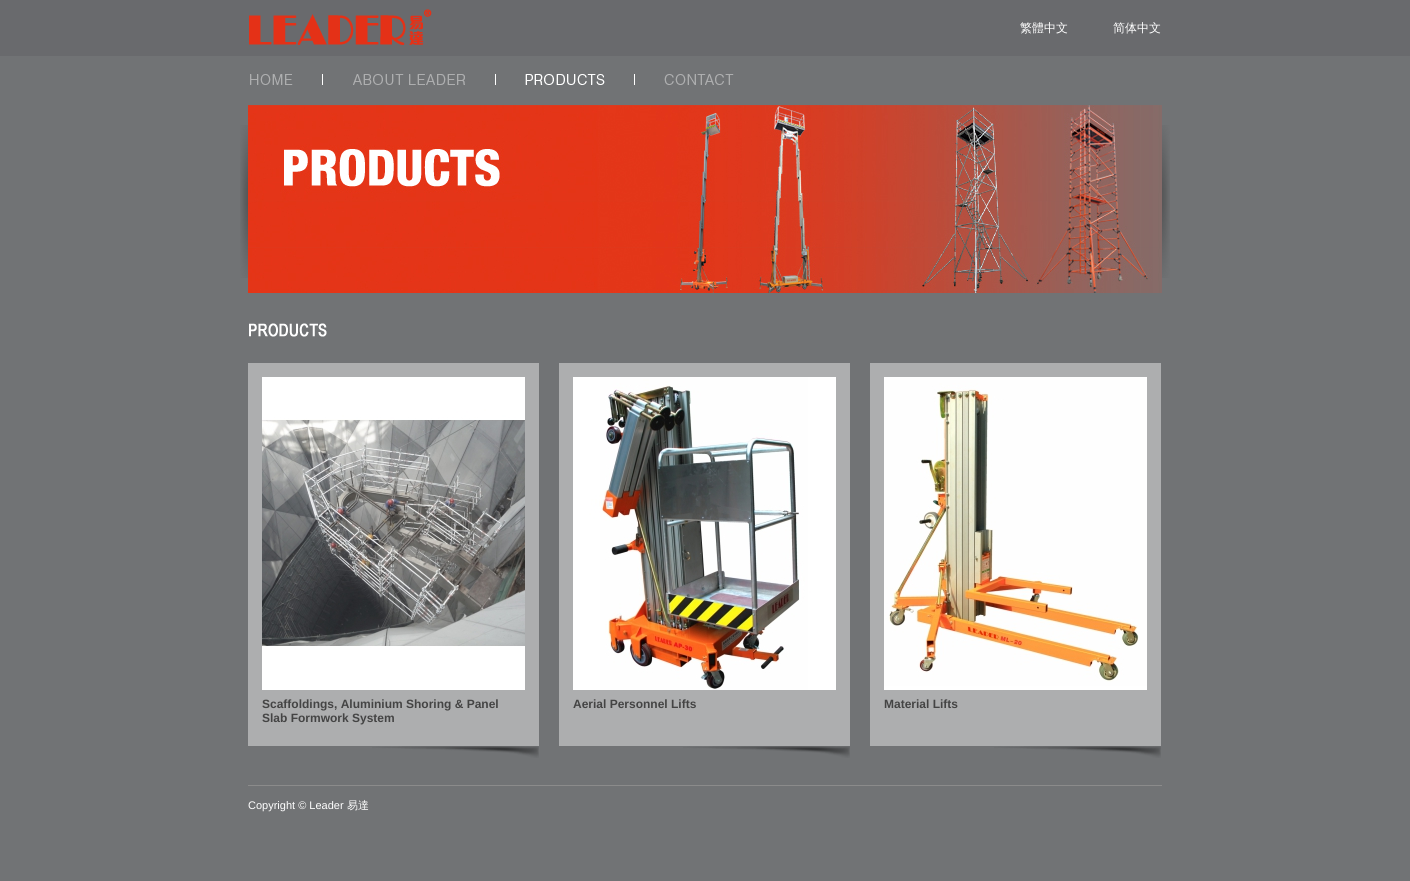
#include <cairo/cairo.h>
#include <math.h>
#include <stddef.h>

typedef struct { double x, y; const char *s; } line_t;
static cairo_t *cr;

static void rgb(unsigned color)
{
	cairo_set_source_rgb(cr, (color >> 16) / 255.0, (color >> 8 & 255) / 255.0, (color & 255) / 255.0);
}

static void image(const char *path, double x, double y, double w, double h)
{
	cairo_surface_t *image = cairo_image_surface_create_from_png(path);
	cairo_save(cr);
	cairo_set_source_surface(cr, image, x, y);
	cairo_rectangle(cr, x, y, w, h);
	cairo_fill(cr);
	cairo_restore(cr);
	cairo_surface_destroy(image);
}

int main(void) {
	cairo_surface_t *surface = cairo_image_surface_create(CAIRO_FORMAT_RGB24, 1410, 881);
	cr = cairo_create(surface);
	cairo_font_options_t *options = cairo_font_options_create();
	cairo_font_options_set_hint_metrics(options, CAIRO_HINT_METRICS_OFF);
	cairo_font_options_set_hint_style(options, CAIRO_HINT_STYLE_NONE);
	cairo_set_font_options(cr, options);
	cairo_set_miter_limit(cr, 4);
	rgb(0x717375);
	cairo_paint(cr);
	rgb(0x696a6d);
	cairo_rectangle(cr, 0, 0, 1410, 56);
	cairo_fill(cr);
	image("img/1.png", 249, 9, 183, 36);
	image("img/2.png", 250, 74, 484, 11);
	image("img/3.png", 525, 74, 80, 11);
	image("img/4.png", 240, 125, 8, 153);
	image("img/5.png", 248, 105, 914, 188);
	image("img/6.png", 1162, 125, 8, 153);
	image("img/7.png", 249, 323, 78, 14);
	image("img/8.png", 372, 746, 167, 12);
	rgb(0xadaeaf);
	cairo_rectangle(cr, 248, 363, 291, 383);
	cairo_fill(cr);
	image("img/9.png", 262, 377, 263, 313);
	image("img/8.png", 683, 746, 167, 12);
	cairo_rectangle(cr, 559, 363, 291, 383);
	cairo_fill(cr);
	image("img/10.png", 573, 377, 263, 313);
	image("img/8.png", 994, 746, 167, 12);
	cairo_rectangle(cr, 870, 363, 291, 383);
	cairo_fill(cr);
	image("img/11.png", 884, 377, 263, 313);
	rgb(0x8b8b8b);
	cairo_rectangle(cr, 248, 785, 914, 1);
	cairo_fill(cr);
	cairo_select_font_face(cr, "WenQuanYi Zen Hei Medium", CAIRO_FONT_SLANT_NORMAL, CAIRO_FONT_WEIGHT_NORMAL);
	cairo_set_font_size(cr, 12);
	rgb(0xffffff);
	cairo_move_to(cr, 1020, 32);
	cairo_show_text(cr, "繁體中文");
	cairo_move_to(cr, 1113, 32);
	cairo_show_text(cr, "简体中文");
	cairo_select_font_face(cr, "Liberation Sans", CAIRO_FONT_SLANT_NORMAL, CAIRO_FONT_WEIGHT_BOLD);
	rgb(0x444444);
	{
		static const line_t items[] = {
			{262, 708, "Scaffoldings, Aluminium Shoring & Panel"},
			{262, 722, "Slab Formwork System"},
			{573, 708, "Aerial Personnel Lifts"},
			{884, 708, "Material Lifts"},
		};
		for (size_t i = 0; i < sizeof items / sizeof *items; i++) {
			cairo_move_to(cr, items[i].x, items[i].y);
			cairo_show_text(cr, items[i].s);
		}
	}
	cairo_select_font_face(cr, "Liberation Sans", CAIRO_FONT_SLANT_NORMAL, CAIRO_FONT_WEIGHT_NORMAL);
	cairo_set_font_size(cr, 11);
	rgb(0xffffff);
	cairo_move_to(cr, 248, 809);
	cairo_show_text(cr, "Copyright © Leader");
	cairo_select_font_face(cr, "WenQuanYi Zen Hei Medium", CAIRO_FONT_SLANT_NORMAL, CAIRO_FONT_WEIGHT_NORMAL);
	cairo_move_to(cr, 347, 809);
	cairo_show_text(cr, "易達");
	cairo_surface_write_to_png(surface, "page.png");
	cairo_font_options_destroy(options);
	cairo_destroy(cr);
	cairo_surface_destroy(surface);
	return 0;
}
